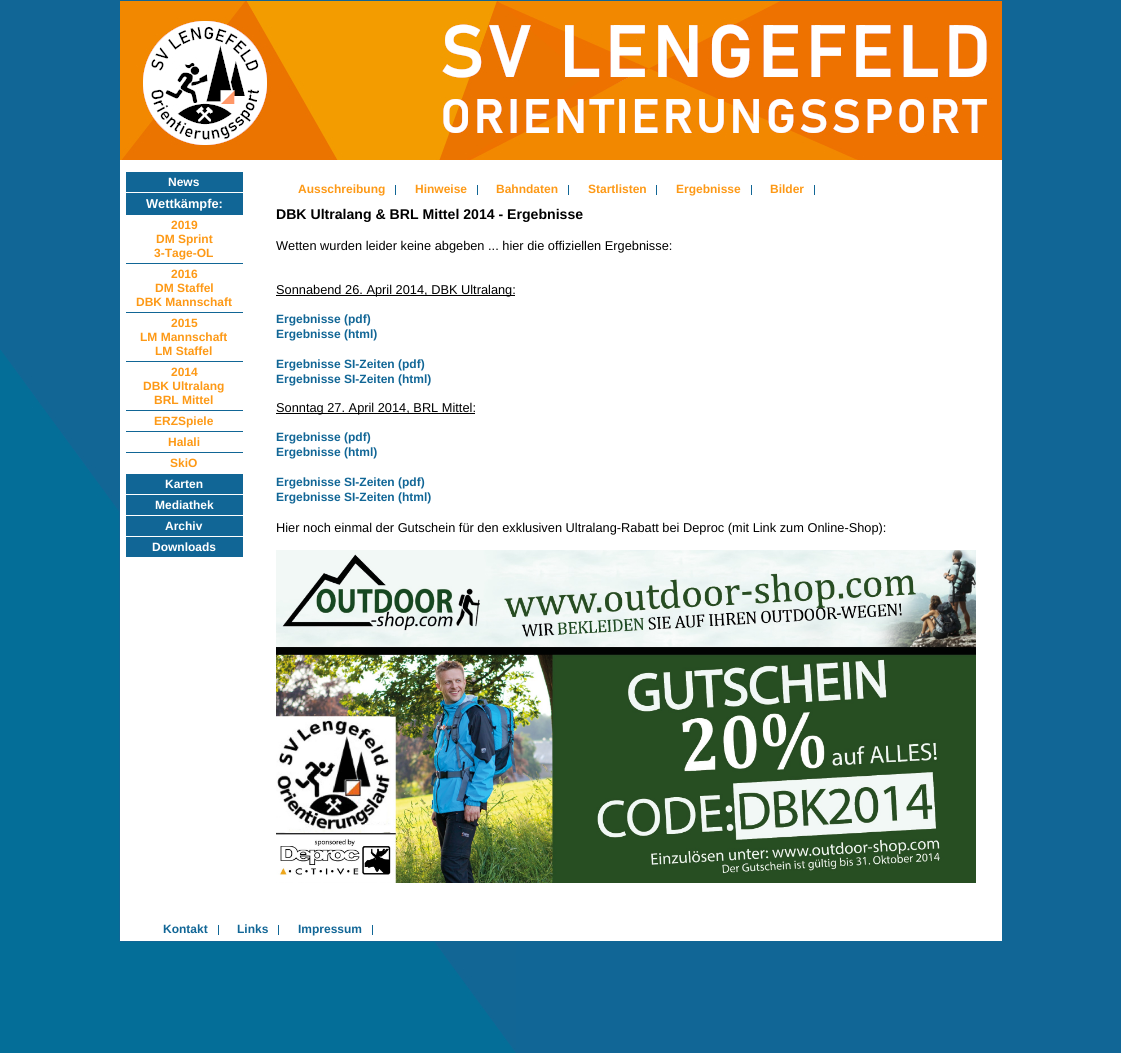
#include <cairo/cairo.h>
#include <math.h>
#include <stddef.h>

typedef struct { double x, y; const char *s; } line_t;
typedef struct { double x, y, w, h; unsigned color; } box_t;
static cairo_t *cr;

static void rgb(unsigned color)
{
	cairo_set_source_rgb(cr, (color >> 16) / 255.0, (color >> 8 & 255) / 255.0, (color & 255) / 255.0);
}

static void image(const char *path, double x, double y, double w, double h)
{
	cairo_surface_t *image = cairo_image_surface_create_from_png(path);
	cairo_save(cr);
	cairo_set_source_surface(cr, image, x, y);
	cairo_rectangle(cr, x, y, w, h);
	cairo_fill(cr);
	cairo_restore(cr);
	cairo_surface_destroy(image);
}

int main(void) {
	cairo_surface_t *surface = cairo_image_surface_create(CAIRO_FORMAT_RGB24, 1121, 1053);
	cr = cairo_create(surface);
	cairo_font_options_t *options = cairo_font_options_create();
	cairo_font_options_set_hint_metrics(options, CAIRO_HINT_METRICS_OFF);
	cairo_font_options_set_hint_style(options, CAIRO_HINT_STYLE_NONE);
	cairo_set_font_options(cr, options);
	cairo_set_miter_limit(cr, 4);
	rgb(0x116696);
	cairo_paint(cr);
	image("img/1.png", 0, 350, 516, 703);
	rgb(0xffffff);
	cairo_rectangle(cr, 120, 160, 882, 781);
	cairo_fill(cr);
	cairo_rectangle(cr, 119.5, 0.5, 883, 941);
	rgb(0x116696);
	cairo_set_line_width(cr, 1);
	cairo_stroke(cr);
	image("img/2.png", 120, 1, 882, 159);
	{
		static const box_t items[] = {
			{126, 172, 117, 385, 0x116696},
			{126, 192, 117, 1, 0xffffff},
			{126, 215, 117, 48, 0xffffff},
			{126, 264, 117, 48, 0xffffff},
			{126, 313, 117, 48, 0xffffff},
			{126, 362, 117, 48, 0xffffff},
			{126, 411, 117, 20, 0xffffff},
			{126, 432, 117, 20, 0xffffff},
			{126, 453, 117, 21, 0xffffff},
			{126, 494, 117, 1, 0xffffff},
			{126, 515, 117, 1, 0xffffff},
			{126, 536, 117, 1, 0xffffff},
			{395, 185, 1, 10, 0x116696},
			{477, 185, 1, 10, 0x116696},
			{568, 185, 1, 10, 0x116696},
			{656, 185, 1, 10, 0x116696},
			{751, 185, 1, 10, 0x116696},
			{814, 185, 1, 10, 0x116696},
			{276, 295, 239, 1, 0x000000},
			{276, 413, 199, 1, 0x000000},
		};
		for (size_t i = 0; i < sizeof items / sizeof *items; i++) {
			rgb(items[i].color);
			cairo_rectangle(cr, items[i].x, items[i].y, items[i].w, items[i].h);
			cairo_fill(cr);
		}
	}
	image("img/3.png", 276, 550, 700, 333);
	{
		static const box_t items[] = {
			{218, 925, 1, 10, 0x116696},
			{278, 925, 1, 10, 0x116696},
			{372, 925, 1, 10, 0x116696},
		};
		for (size_t i = 0; i < sizeof items / sizeof *items; i++) {
			rgb(items[i].color);
			cairo_rectangle(cr, items[i].x, items[i].y, items[i].w, items[i].h);
			cairo_fill(cr);
		}
	}
	cairo_select_font_face(cr, "Liberation Sans", CAIRO_FONT_SLANT_NORMAL, CAIRO_FONT_WEIGHT_BOLD);
	cairo_set_font_size(cr, 12);
	rgb(0xffffff);
	cairo_move_to(cr, 168, 186);
	cairo_show_text(cr, "News");
	cairo_set_font_size(cr, 12.8);
	cairo_move_to(cr, 146, 208);
	cairo_show_text(cr, "Wettkämpfe:");
	cairo_set_font_size(cr, 12);
	rgb(0xfd9916);
	{
		static const line_t items[] = {
			{171, 229, "2019"},
			{156, 243, "DM Sprint"},
			{154, 257, "3-Tage-OL"},
			{171, 278, "2016"},
			{155, 292, "DM Staffel"},
			{136, 306, "DBK Mannschaft"},
			{171, 327, "2015"},
			{140, 341, "LM Mannschaft"},
			{155, 355, "LM Staffel"},
			{171, 376, "2014"},
			{143, 390, "DBK Ultralang"},
			{154, 404, "BRL Mittel"},
			{154, 425, "ERZSpiele"},
			{168, 446, "Halali"},
			{170, 467, "SkiO"},
		};
		for (size_t i = 0; i < sizeof items / sizeof *items; i++) {
			cairo_move_to(cr, items[i].x, items[i].y);
			cairo_show_text(cr, items[i].s);
		}
	}
	rgb(0xffffff);
	{
		static const line_t items[] = {
			{165, 488, "Karten"},
			{155, 509, "Mediathek"},
			{165, 530, "Archiv"},
			{152, 551, "Downloads"},
		};
		for (size_t i = 0; i < sizeof items / sizeof *items; i++) {
			cairo_move_to(cr, items[i].x, items[i].y);
			cairo_show_text(cr, items[i].s);
		}
	}
	rgb(0xfd9916);
	{
		static const line_t items[] = {
			{298, 193, "Ausschreibung"},
			{415, 193, "Hinweise"},
			{496, 193, "Bahndaten"},
			{588, 193, "Startlisten"},
			{676, 193, "Ergebnisse"},
			{770, 193, "Bilder"},
		};
		for (size_t i = 0; i < sizeof items / sizeof *items; i++) {
			cairo_move_to(cr, items[i].x, items[i].y);
			cairo_show_text(cr, items[i].s);
		}
	}
	cairo_set_font_size(cr, 14.1);
	rgb(0x000000);
	cairo_move_to(cr, 276, 219);
	cairo_show_text(cr, "DBK Ultralang & BRL Mittel 2014 - Ergebnisse");
	cairo_select_font_face(cr, "Liberation Sans", CAIRO_FONT_SLANT_NORMAL, CAIRO_FONT_WEIGHT_NORMAL);
	cairo_set_font_size(cr, 12.8);
	cairo_move_to(cr, 276, 250);
	cairo_show_text(cr, "Wetten wurden leider keine abgeben ... hier die offiziellen Ergebnisse:");
	cairo_move_to(cr, 276, 294);
	cairo_show_text(cr, "Sonnabend 26. April 2014, DBK Ultralang:");
	cairo_select_font_face(cr, "Liberation Sans", CAIRO_FONT_SLANT_NORMAL, CAIRO_FONT_WEIGHT_BOLD);
	cairo_set_font_size(cr, 12);
	rgb(0x116696);
	{
		static const line_t items[] = {
			{276, 323, "Ergebnisse (pdf)"},
			{276, 338, "Ergebnisse (html)"},
			{276, 368, "Ergebnisse SI-Zeiten (pdf)"},
			{276, 383, "Ergebnisse SI-Zeiten (html)"},
		};
		for (size_t i = 0; i < sizeof items / sizeof *items; i++) {
			cairo_move_to(cr, items[i].x, items[i].y);
			cairo_show_text(cr, items[i].s);
		}
	}
	cairo_select_font_face(cr, "Liberation Sans", CAIRO_FONT_SLANT_NORMAL, CAIRO_FONT_WEIGHT_NORMAL);
	cairo_set_font_size(cr, 12.8);
	rgb(0x000000);
	cairo_move_to(cr, 276, 412);
	cairo_show_text(cr, "Sonntag 27. April 2014, BRL Mittel:");
	cairo_select_font_face(cr, "Liberation Sans", CAIRO_FONT_SLANT_NORMAL, CAIRO_FONT_WEIGHT_BOLD);
	cairo_set_font_size(cr, 12);
	rgb(0x116696);
	{
		static const line_t items[] = {
			{276, 441, "Ergebnisse (pdf)"},
			{276, 456, "Ergebnisse (html)"},
			{276, 486, "Ergebnisse SI-Zeiten (pdf)"},
			{276, 501, "Ergebnisse SI-Zeiten (html)"},
		};
		for (size_t i = 0; i < sizeof items / sizeof *items; i++) {
			cairo_move_to(cr, items[i].x, items[i].y);
			cairo_show_text(cr, items[i].s);
		}
	}
	cairo_select_font_face(cr, "Liberation Sans", CAIRO_FONT_SLANT_NORMAL, CAIRO_FONT_WEIGHT_NORMAL);
	cairo_set_font_size(cr, 12.8);
	rgb(0x000000);
	cairo_move_to(cr, 276, 532);
	cairo_show_text(cr, "Hier noch einmal der Gutschein für den exklusiven Ultralang-Rabatt bei Deproc (mit Link zum Online-Shop):");
	cairo_select_font_face(cr, "Liberation Sans", CAIRO_FONT_SLANT_NORMAL, CAIRO_FONT_WEIGHT_BOLD);
	cairo_set_font_size(cr, 12);
	rgb(0x116696);
	{
		static const line_t items[] = {
			{163, 933, "Kontakt"},
			{237, 933, "Links"},
			{298, 933, "Impressum"},
		};
		for (size_t i = 0; i < sizeof items / sizeof *items; i++) {
			cairo_move_to(cr, items[i].x, items[i].y);
			cairo_show_text(cr, items[i].s);
		}
	}
	cairo_surface_write_to_png(surface, "page.png");
	cairo_font_options_destroy(options);
	cairo_destroy(cr);
	cairo_surface_destroy(surface);
	return 0;
}
